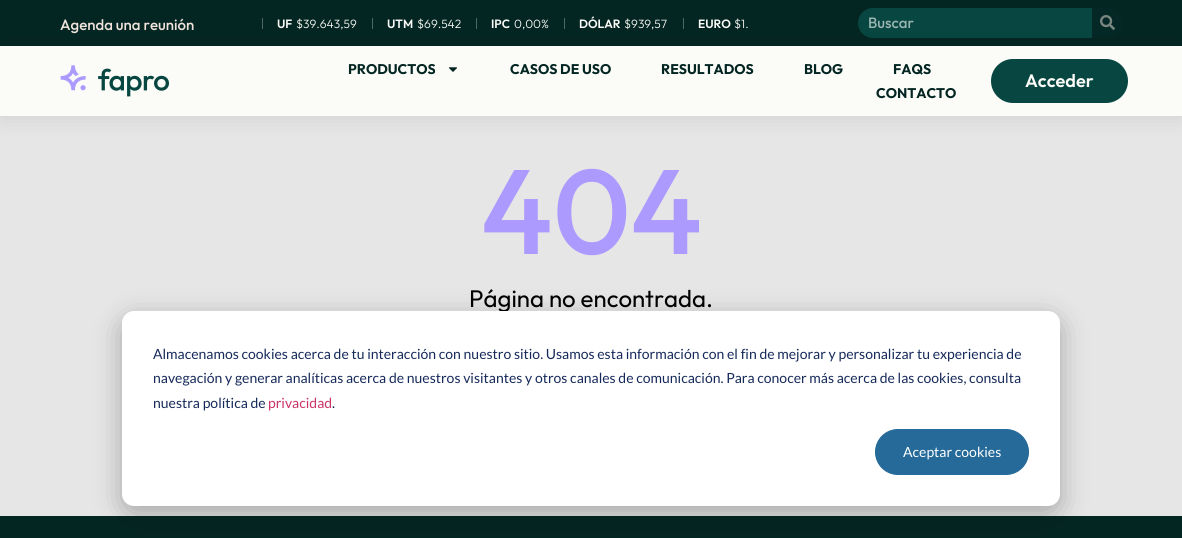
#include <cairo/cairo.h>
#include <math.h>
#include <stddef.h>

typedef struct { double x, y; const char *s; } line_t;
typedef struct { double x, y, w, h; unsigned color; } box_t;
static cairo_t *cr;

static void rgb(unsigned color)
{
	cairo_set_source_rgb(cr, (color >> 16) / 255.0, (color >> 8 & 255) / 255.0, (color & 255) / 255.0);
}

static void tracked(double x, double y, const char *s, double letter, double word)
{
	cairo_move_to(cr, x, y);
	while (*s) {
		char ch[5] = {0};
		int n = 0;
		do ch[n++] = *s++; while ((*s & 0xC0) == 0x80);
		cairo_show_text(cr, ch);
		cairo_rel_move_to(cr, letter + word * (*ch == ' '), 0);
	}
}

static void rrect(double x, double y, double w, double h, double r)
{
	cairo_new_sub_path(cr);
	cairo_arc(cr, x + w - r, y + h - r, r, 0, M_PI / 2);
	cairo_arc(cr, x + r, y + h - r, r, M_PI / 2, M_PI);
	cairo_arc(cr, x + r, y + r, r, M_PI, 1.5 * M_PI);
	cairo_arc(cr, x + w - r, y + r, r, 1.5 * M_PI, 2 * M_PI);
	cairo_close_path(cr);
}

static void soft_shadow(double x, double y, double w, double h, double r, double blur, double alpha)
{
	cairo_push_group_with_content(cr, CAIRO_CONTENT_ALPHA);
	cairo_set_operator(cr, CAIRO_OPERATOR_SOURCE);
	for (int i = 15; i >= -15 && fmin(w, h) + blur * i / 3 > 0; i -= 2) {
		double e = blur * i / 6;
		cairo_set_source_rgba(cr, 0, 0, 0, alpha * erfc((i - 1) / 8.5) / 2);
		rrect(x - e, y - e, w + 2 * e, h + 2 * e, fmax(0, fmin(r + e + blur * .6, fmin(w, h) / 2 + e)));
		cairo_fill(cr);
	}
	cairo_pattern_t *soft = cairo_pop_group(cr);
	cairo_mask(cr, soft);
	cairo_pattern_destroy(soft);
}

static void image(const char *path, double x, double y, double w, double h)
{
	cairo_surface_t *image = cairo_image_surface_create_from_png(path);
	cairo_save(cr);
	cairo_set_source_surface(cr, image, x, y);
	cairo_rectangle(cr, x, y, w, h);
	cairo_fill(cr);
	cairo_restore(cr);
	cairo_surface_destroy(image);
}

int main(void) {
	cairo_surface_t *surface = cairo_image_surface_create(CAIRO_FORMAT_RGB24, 1182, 538);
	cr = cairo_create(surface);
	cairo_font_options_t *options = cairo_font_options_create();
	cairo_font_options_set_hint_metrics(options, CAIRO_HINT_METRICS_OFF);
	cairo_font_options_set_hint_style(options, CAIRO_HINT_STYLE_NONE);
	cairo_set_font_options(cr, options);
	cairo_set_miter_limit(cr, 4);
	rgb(0xe6e6e6);
	cairo_paint(cr);
	{
		static const box_t items[] = {
			{0, 0, 1182, 46, 0x042623},
			{262, 18, 1, 11, 0x4f6765},
			{372, 18, 1, 11, 0x4f6765},
			{476, 18, 1, 11, 0x4f6765},
			{564, 18, 1, 11, 0x4f6765},
			{683, 18, 1, 11, 0x4f6765},
		};
		for (size_t i = 0; i < sizeof items / sizeof *items; i++) {
			rgb(items[i].color);
			cairo_rectangle(cr, items[i].x, items[i].y, items[i].w, items[i].h);
			cairo_fill(cr);
		}
	}
	rgb(0x074641);
	rrect(858, 8, 264, 30, 15);
	cairo_fill(cr);
	cairo_set_source_rgba(cr, 0, 0, 0, 0.43);
	cairo_new_path(cr);
	cairo_move_to(cr, 1092, 8);
	cairo_line_to(cr, 1107, 8);
	cairo_curve_to(cr, 1115.5, 8, 1122, 14.5, 1122, 23);
	cairo_curve_to(cr, 1122, 31.5, 1115.5, 38, 1107, 38);
	cairo_line_to(cr, 1092, 38);
	cairo_close_path(cr);
	cairo_fill(cr);
	image("img/1.png", 1100, 15, 15, 15);
	rgb(0x000000);
	soft_shadow(0, 48, 1182, 70, 0, 10, 0.1);
	rgb(0xfbfcf7);
	cairo_rectangle(cr, 0, 46, 1182, 70);
	cairo_fill(cr);
	image("img/2.png", 60, 65, 109, 32);
	image("img/3.png", 449, 67, 8, 5);
	rgb(0x074641);
	rrect(991, 59, 137, 44, 22);
	cairo_fill(cr);
	rgb(0x042623);
	cairo_rectangle(cr, 0, 516, 1182, 22);
	cairo_fill(cr);
	rgb(0x000000);
	soft_shadow(122, 319, 938, 195, 12, 14, 0.28);
	cairo_select_font_face(cr, "Outfit Medium", CAIRO_FONT_SLANT_NORMAL, CAIRO_FONT_WEIGHT_NORMAL);
	cairo_set_font_size(cr, 15);
	rgb(0xefe3db);
	cairo_move_to(cr, 60, 30);
	cairo_show_text(cr, "Agenda una reunión");
	cairo_select_font_face(cr, "Outfit SemiBold", CAIRO_FONT_SLANT_NORMAL, CAIRO_FONT_WEIGHT_NORMAL);
	cairo_set_font_size(cr, 12);
	rgb(0xfbfbf7);
	cairo_move_to(cr, 277, 28);
	cairo_show_text(cr, "UF");
	cairo_select_font_face(cr, "Outfit Light", CAIRO_FONT_SLANT_NORMAL, CAIRO_FONT_WEIGHT_NORMAL);
	cairo_move_to(cr, 296, 28);
	cairo_show_text(cr, "$39.643,59");
	cairo_select_font_face(cr, "Outfit SemiBold", CAIRO_FONT_SLANT_NORMAL, CAIRO_FONT_WEIGHT_NORMAL);
	cairo_move_to(cr, 387, 28);
	cairo_show_text(cr, "UTM");
	cairo_select_font_face(cr, "Outfit Light", CAIRO_FONT_SLANT_NORMAL, CAIRO_FONT_WEIGHT_NORMAL);
	cairo_move_to(cr, 417, 28);
	cairo_show_text(cr, "$69.542");
	cairo_select_font_face(cr, "Outfit SemiBold", CAIRO_FONT_SLANT_NORMAL, CAIRO_FONT_WEIGHT_NORMAL);
	cairo_move_to(cr, 491, 28);
	cairo_show_text(cr, "IPC");
	cairo_select_font_face(cr, "Outfit Light", CAIRO_FONT_SLANT_NORMAL, CAIRO_FONT_WEIGHT_NORMAL);
	cairo_move_to(cr, 514, 28);
	cairo_show_text(cr, "0,00%");
	cairo_select_font_face(cr, "Outfit SemiBold", CAIRO_FONT_SLANT_NORMAL, CAIRO_FONT_WEIGHT_NORMAL);
	cairo_move_to(cr, 579, 28);
	cairo_show_text(cr, "DÓLAR");
	cairo_select_font_face(cr, "Outfit Light", CAIRO_FONT_SLANT_NORMAL, CAIRO_FONT_WEIGHT_NORMAL);
	cairo_move_to(cr, 624, 28);
	cairo_show_text(cr, "$939,57");
	cairo_select_font_face(cr, "Outfit SemiBold", CAIRO_FONT_SLANT_NORMAL, CAIRO_FONT_WEIGHT_NORMAL);
	cairo_move_to(cr, 698, 28);
	cairo_show_text(cr, "EURO");
	cairo_select_font_face(cr, "Outfit Light", CAIRO_FONT_SLANT_NORMAL, CAIRO_FONT_WEIGHT_NORMAL);
	cairo_move_to(cr, 734, 28);
	cairo_show_text(cr, "$1.");
	cairo_select_font_face(cr, "Outfit Medium", CAIRO_FONT_SLANT_NORMAL, CAIRO_FONT_WEIGHT_NORMAL);
	cairo_set_font_size(cr, 15);
	rgb(0x99b3ae);
	cairo_move_to(cr, 868, 28);
	cairo_show_text(cr, "Buscar");
	cairo_select_font_face(cr, "Outfit", CAIRO_FONT_SLANT_NORMAL, CAIRO_FONT_WEIGHT_BOLD);
	cairo_set_font_size(cr, 14);
	rgb(0x042623);
	{
		static const line_t items[] = {
			{348, 74, "PRODUCTOS"},
			{510, 74, "CASOS DE USO"},
			{661, 74, "RESULTADOS"},
			{804, 74, "BLOG"},
			{893, 74, "FAQS"},
			{876, 98, "CONTACTO"},
		};
		for (size_t i = 0; i < sizeof items / sizeof *items; i++) {
			cairo_move_to(cr, items[i].x, items[i].y);
			cairo_show_text(cr, items[i].s);
		}
	}
	cairo_select_font_face(cr, "Outfit SemiBold", CAIRO_FONT_SLANT_NORMAL, CAIRO_FONT_WEIGHT_NORMAL);
	cairo_set_font_size(cr, 18);
	rgb(0xfbfbf7);
	cairo_move_to(cr, 1025, 87);
	cairo_show_text(cr, "Acceder");
	cairo_select_font_face(cr, "Outfit Medium", CAIRO_FONT_SLANT_NORMAL, CAIRO_FONT_WEIGHT_NORMAL);
	cairo_set_font_size(cr, 120);
	rgb(0xac9aff);
	tracked(481, 254, "404", -0.5, 0);
	cairo_select_font_face(cr, "Outfit", CAIRO_FONT_SLANT_NORMAL, CAIRO_FONT_WEIGHT_NORMAL);
	cairo_set_font_size(cr, 24);
	rgb(0x000000);
	cairo_move_to(cr, 469, 307);
	cairo_show_text(cr, "Página no encontrada.");
	rgb(0xffffff);
	rrect(122, 311, 938, 195, 12);
	cairo_fill(cr);
	cairo_select_font_face(cr, "Lato", CAIRO_FONT_SLANT_NORMAL, CAIRO_FONT_WEIGHT_NORMAL);
	cairo_set_font_size(cr, 14);
	rgb(0x15295a);
	{
		static const line_t items[] = {
			{153, 359, "Almacenamos cookies acerca de tu interacción con nuestro sitio. Usamos esta información con el fin de mejorar y personalizar tu experiencia de"},
			{153, 383, "navegación y generar analíticas acerca de nuestros visitantes y otros canales de comunicación. Para conocer más acerca de las cookies, consulta"},
			{153, 408, "nuestra política de"},
		};
		for (size_t i = 0; i < sizeof items / sizeof *items; i++) {
			cairo_move_to(cr, items[i].x, items[i].y);
			cairo_show_text(cr, items[i].s);
		}
	}
	rgb(0xcc3366);
	cairo_move_to(cr, 268, 408);
	cairo_show_text(cr, "privacidad");
	rgb(0x15295a);
	cairo_move_to(cr, 332, 408);
	cairo_show_text(cr, ".");
	rgb(0x256a98);
	rrect(875.5, 429.5, 153, 45, 22.5);
	cairo_fill_preserve(cr);
	cairo_set_line_width(cr, 1);
	cairo_stroke(cr);
	rgb(0xffffff);
	cairo_move_to(cr, 903, 457);
	cairo_show_text(cr, "Aceptar cookies");
	cairo_surface_write_to_png(surface, "page.png");
	cairo_font_options_destroy(options);
	cairo_destroy(cr);
	cairo_surface_destroy(surface);
	return 0;
}
